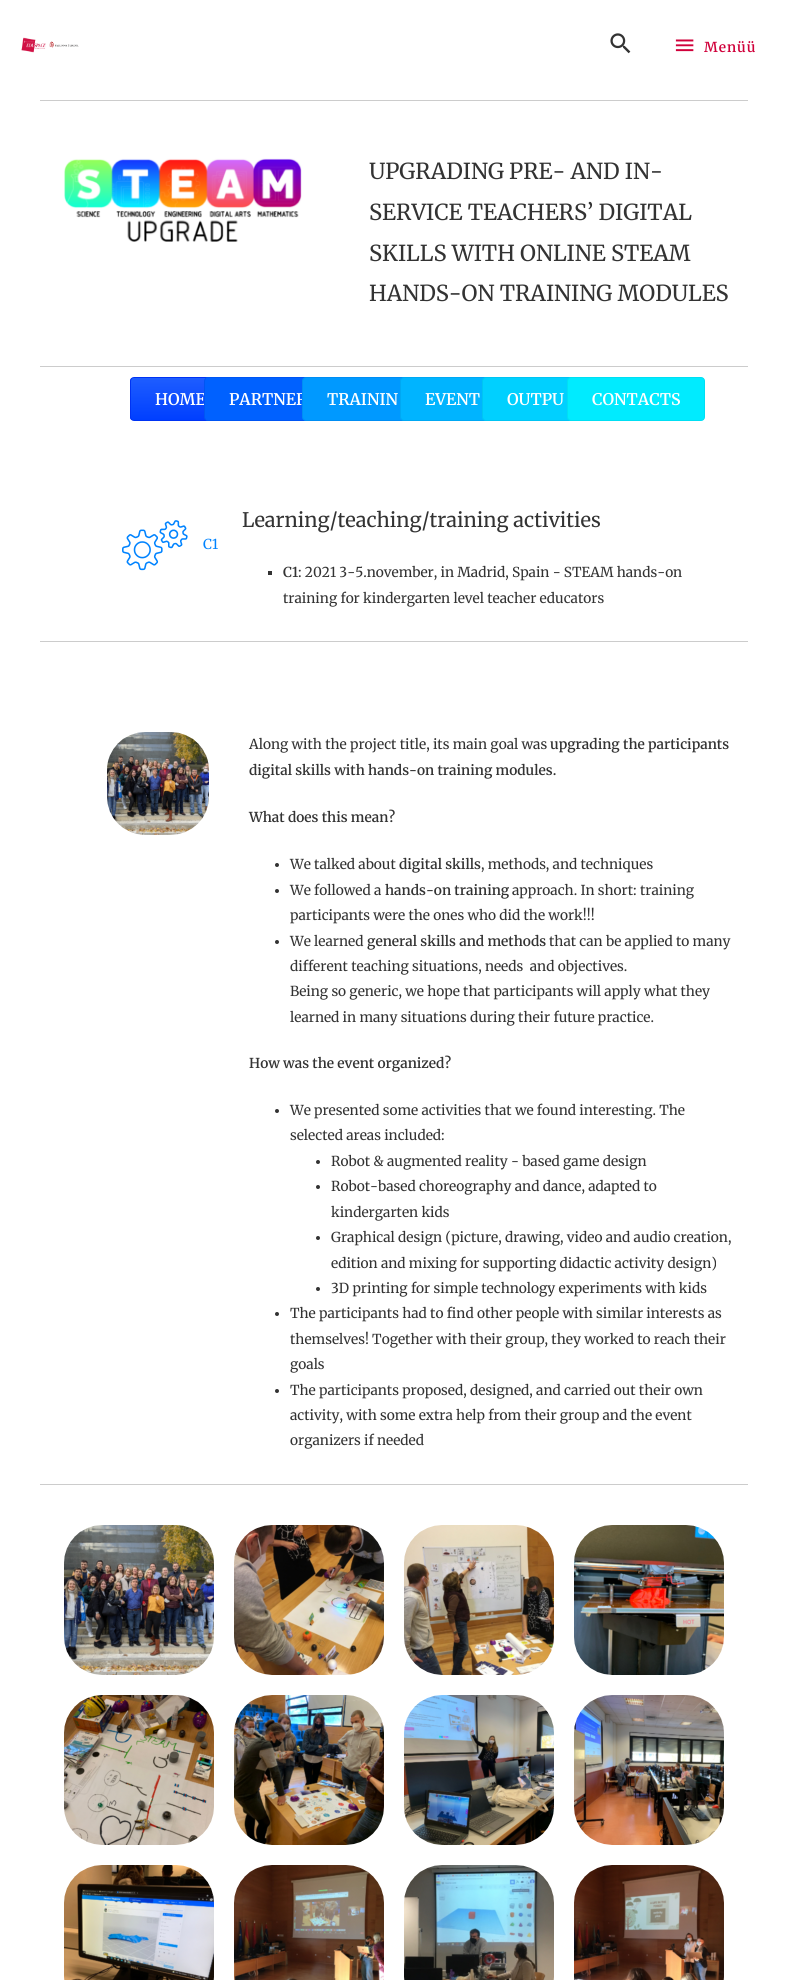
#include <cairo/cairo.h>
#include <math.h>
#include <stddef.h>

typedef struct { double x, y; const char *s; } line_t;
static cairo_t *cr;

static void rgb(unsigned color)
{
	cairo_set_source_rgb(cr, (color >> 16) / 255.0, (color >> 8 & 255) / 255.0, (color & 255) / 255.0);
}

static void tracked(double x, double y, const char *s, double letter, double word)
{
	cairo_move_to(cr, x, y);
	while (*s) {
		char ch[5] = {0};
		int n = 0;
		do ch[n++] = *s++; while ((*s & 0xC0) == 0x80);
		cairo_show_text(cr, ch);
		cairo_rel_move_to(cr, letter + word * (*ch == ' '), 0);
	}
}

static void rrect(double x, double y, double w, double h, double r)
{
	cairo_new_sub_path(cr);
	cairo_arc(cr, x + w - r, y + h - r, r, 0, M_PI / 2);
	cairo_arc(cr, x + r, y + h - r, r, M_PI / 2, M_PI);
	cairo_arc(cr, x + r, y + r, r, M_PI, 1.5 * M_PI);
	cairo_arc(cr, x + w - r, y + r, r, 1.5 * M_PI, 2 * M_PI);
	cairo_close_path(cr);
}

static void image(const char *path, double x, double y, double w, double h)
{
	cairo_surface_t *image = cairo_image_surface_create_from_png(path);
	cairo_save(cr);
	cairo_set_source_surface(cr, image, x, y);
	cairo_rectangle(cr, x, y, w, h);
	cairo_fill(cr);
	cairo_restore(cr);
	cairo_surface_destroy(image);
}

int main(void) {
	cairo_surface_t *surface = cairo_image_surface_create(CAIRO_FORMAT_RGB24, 788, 1980);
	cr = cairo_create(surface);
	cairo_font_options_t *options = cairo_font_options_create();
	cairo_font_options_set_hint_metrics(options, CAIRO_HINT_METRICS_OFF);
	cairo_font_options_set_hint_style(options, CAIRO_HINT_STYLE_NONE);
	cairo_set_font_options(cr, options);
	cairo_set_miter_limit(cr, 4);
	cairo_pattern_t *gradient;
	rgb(0xffffff);
	cairo_paint(cr);
	image("img/1.png", 21, 37, 58, 16);
	image("img/2.png", 610, 33, 21, 21);
	image("img/3.png", 675, 39, 19, 13);
	rgb(0xcccccc);
	cairo_rectangle(cr, 40, 100, 708, 1);
	cairo_fill(cr);
	image("img/4.png", 64, 158, 238, 84);
	cairo_rectangle(cr, 40, 366, 708, 1);
	cairo_fill(cr);
	cairo_save(cr);
	rrect(130, 377, 101, 44, 4);
	cairo_clip(cr);
	gradient = cairo_pattern_create_linear(181, 378, 181, 420);
	cairo_pattern_add_color_stop_rgba(gradient, 0, 0.118, 0.365, 1, 1);
	cairo_pattern_add_color_stop_rgba(gradient, 1, 0, 0.247, 1, 1);
	cairo_set_source(cr, gradient);
	cairo_pattern_destroy(gradient);
	cairo_rectangle(cr, 130, 378, 76, 42);
	cairo_fill(cr);
	cairo_restore(cr);
	rrect(130.5, 377.5, 100, 43, 3.5);
	rgb(0x0033f3);
	cairo_set_line_width(cr, 1);
	cairo_stroke(cr);
	image("img/5.png", 122, 520, 66, 51);
	rgb(0x333333);
	cairo_rectangle(cr, 268, 571, 4, 4);
	cairo_fill(cr);
	rgb(0xcccccc);
	cairo_rectangle(cr, 40, 641, 708, 1);
	cairo_fill(cr);
	image("img/6.png", 107, 732, 102, 103);
	rgb(0x333333);
	cairo_arc(cr, 277, 865, 2, 0, 2 * M_PI);
	cairo_fill(cr);
	cairo_arc(cr, 277, 891, 2, 0, 2 * M_PI);
	cairo_fill(cr);
	cairo_arc(cr, 277, 942, 2, 0, 2 * M_PI);
	cairo_fill(cr);
	cairo_arc(cr, 277, 1111, 2, 0, 2 * M_PI);
	cairo_fill(cr);
	cairo_arc(cr, 318, 1162, 2, 0, 2 * M_PI);
	cairo_fill(cr);
	cairo_arc(cr, 318, 1187, 2, 0, 2 * M_PI);
	cairo_fill(cr);
	cairo_arc(cr, 318, 1238, 2, 0, 2 * M_PI);
	cairo_fill(cr);
	cairo_arc(cr, 318, 1289, 2, 0, 2 * M_PI);
	cairo_fill(cr);
	cairo_arc(cr, 277, 1314, 2, 0, 2 * M_PI);
	cairo_fill(cr);
	cairo_arc(cr, 277, 1391, 2, 0, 2 * M_PI);
	cairo_fill(cr);
	rgb(0xcccccc);
	cairo_rectangle(cr, 40, 1484, 708, 1);
	cairo_fill(cr);
	image("img/7.png", 64, 1525, 150, 150);
	image("img/8.png", 234, 1525, 150, 150);
	image("img/9.png", 404, 1525, 150, 150);
	image("img/10.png", 574, 1525, 150, 150);
	image("img/11.png", 64, 1695, 150, 150);
	image("img/12.png", 234, 1695, 150, 150);
	image("img/13.png", 404, 1695, 150, 150);
	image("img/14.png", 574, 1695, 150, 150);
	image("img/15.png", 64, 1865, 150, 115);
	image("img/16.png", 234, 1865, 150, 115);
	image("img/17.png", 404, 1865, 150, 115);
	image("img/18.png", 574, 1865, 150, 115);
	cairo_select_font_face(cr, "Merriweather SemiBold", CAIRO_FONT_SLANT_NORMAL, CAIRO_FONT_WEIGHT_NORMAL);
	cairo_set_font_size(cr, 13.7);
	rgb(0xd0003a);
	tracked(704, 52, "Menüü", 1, 0);
	cairo_select_font_face(cr, "Merriweather", CAIRO_FONT_SLANT_NORMAL, CAIRO_FONT_WEIGHT_NORMAL);
	cairo_set_font_size(cr, 22);
	rgb(0x333333);
	{
		static const line_t items[] = {
			{369, 179, "UPGRADING PRE- AND IN-"},
			{369, 220, "SERVICE TEACHERS’ DIGITAL"},
			{369, 261, "SKILLS WITH ONLINE STEAM"},
			{369, 301, "HANDS-ON TRAINING MODULES"},
		};
		for (size_t i = 0; i < sizeof items / sizeof *items; i++) {
			cairo_move_to(cr, items[i].x, items[i].y);
			cairo_show_text(cr, items[i].s);
		}
	}
	cairo_select_font_face(cr, "Merriweather SemiBold", CAIRO_FONT_SLANT_NORMAL, CAIRO_FONT_WEIGHT_NORMAL);
	cairo_set_font_size(cr, 16);
	rgb(0xffffff);
	cairo_move_to(cr, 155, 405);
	cairo_show_text(cr, "HOME");
	rgb(0x0061ff);
	rrect(204.5, 377.5, 136, 43, 3.5);
	cairo_fill_preserve(cr);
	rgb(0x0055f3);
	cairo_stroke(cr);
	rgb(0xffffff);
	cairo_move_to(cr, 229, 405);
	cairo_show_text(cr, "PARTNER");
	rgb(0x0099ff);
	rrect(302.5, 377.5, 141, 43, 3.5);
	cairo_fill_preserve(cr);
	rgb(0x008df3);
	cairo_stroke(cr);
	rgb(0xffffff);
	cairo_move_to(cr, 327, 405);
	cairo_show_text(cr, "TRAININ");
	rgb(0x00b4ff);
	rrect(400.5, 377.5, 113, 43, 3.5);
	cairo_fill_preserve(cr);
	rgb(0x00a8f3);
	cairo_stroke(cr);
	rgb(0xffffff);
	cairo_move_to(cr, 425, 405);
	cairo_show_text(cr, "EVENT");
	rgb(0x00d0ff);
	rrect(482.5, 377.5, 126, 43, 3.5);
	cairo_fill_preserve(cr);
	rgb(0x00c4f3);
	cairo_stroke(cr);
	rgb(0xffffff);
	cairo_move_to(cr, 507, 405);
	cairo_show_text(cr, "OUTPU");
	rgb(0x00ebff);
	rrect(567.5, 377.5, 137, 43, 3.5);
	cairo_fill_preserve(cr);
	rgb(0x00dff3);
	cairo_stroke(cr);
	rgb(0xffffff);
	cairo_move_to(cr, 592, 405);
	cairo_show_text(cr, "CONTACTS");
	cairo_select_font_face(cr, "Merriweather", CAIRO_FONT_SLANT_NORMAL, CAIRO_FONT_WEIGHT_NORMAL);
	cairo_set_font_size(cr, 13.7);
	rgb(0x0083ff);
	cairo_move_to(cr, 203, 549);
	cairo_show_text(cr, "C1");
	cairo_set_font_size(cr, 20);
	rgb(0x333333);
	cairo_move_to(cr, 242, 527);
	cairo_show_text(cr, "Learning/teaching/training activities");
	cairo_select_font_face(cr, "Merriweather SemiBold", CAIRO_FONT_SLANT_NORMAL, CAIRO_FONT_WEIGHT_NORMAL);
	cairo_set_font_size(cr, 13.7);
	cairo_move_to(cr, 283, 577);
	cairo_show_text(cr, "C1");
	cairo_select_font_face(cr, "Merriweather", CAIRO_FONT_SLANT_NORMAL, CAIRO_FONT_WEIGHT_NORMAL);
	{
		static const line_t items[] = {
			{298, 577, ": 2021 3-5.november, in Madrid, Spain - STEAM hands-on"},
			{283, 603, "training for kindergarten level teacher educators"},
			{249, 749, "Along with the project title, its main goal was"},
		};
		for (size_t i = 0; i < sizeof items / sizeof *items; i++) {
			cairo_move_to(cr, items[i].x, items[i].y);
			cairo_show_text(cr, items[i].s);
		}
	}
	cairo_select_font_face(cr, "Merriweather SemiBold", CAIRO_FONT_SLANT_NORMAL, CAIRO_FONT_WEIGHT_NORMAL);
	{
		static const line_t items[] = {
			{550, 749, "upgrading the participants"},
			{249, 775, "digital skills with hands-on training modules."},
			{249, 822, "What does this mean?"},
		};
		for (size_t i = 0; i < sizeof items / sizeof *items; i++) {
			cairo_move_to(cr, items[i].x, items[i].y);
			cairo_show_text(cr, items[i].s);
		}
	}
	cairo_select_font_face(cr, "Merriweather", CAIRO_FONT_SLANT_NORMAL, CAIRO_FONT_WEIGHT_NORMAL);
	cairo_move_to(cr, 290, 869);
	cairo_show_text(cr, "We talked about");
	cairo_select_font_face(cr, "Merriweather SemiBold", CAIRO_FONT_SLANT_NORMAL, CAIRO_FONT_WEIGHT_NORMAL);
	cairo_move_to(cr, 399, 869);
	cairo_show_text(cr, "digital skills");
	cairo_select_font_face(cr, "Merriweather", CAIRO_FONT_SLANT_NORMAL, CAIRO_FONT_WEIGHT_NORMAL);
	cairo_move_to(cr, 481, 869);
	cairo_show_text(cr, ", methods, and techniques");
	cairo_move_to(cr, 290, 895);
	cairo_show_text(cr, "We followed a");
	cairo_select_font_face(cr, "Merriweather SemiBold", CAIRO_FONT_SLANT_NORMAL, CAIRO_FONT_WEIGHT_NORMAL);
	cairo_move_to(cr, 385, 895);
	cairo_show_text(cr, "hands-on training");
	cairo_select_font_face(cr, "Merriweather", CAIRO_FONT_SLANT_NORMAL, CAIRO_FONT_WEIGHT_NORMAL);
	{
		static const line_t items[] = {
			{512, 895, "approach. In short: training"},
			{290, 920, "participants were the ones who did the work!!!"},
			{290, 946, "We learned"},
		};
		for (size_t i = 0; i < sizeof items / sizeof *items; i++) {
			cairo_move_to(cr, items[i].x, items[i].y);
			cairo_show_text(cr, items[i].s);
		}
	}
	cairo_select_font_face(cr, "Merriweather SemiBold", CAIRO_FONT_SLANT_NORMAL, CAIRO_FONT_WEIGHT_NORMAL);
	cairo_move_to(cr, 367, 946);
	cairo_show_text(cr, "general skills and methods");
	cairo_select_font_face(cr, "Merriweather", CAIRO_FONT_SLANT_NORMAL, CAIRO_FONT_WEIGHT_NORMAL);
	{
		static const line_t items[] = {
			{549, 946, "that can be applied to many"},
			{290, 971, "different teaching situations, needs  and objectives."},
			{290, 996, "Being so generic, we hope that participants will apply what they"},
			{290, 1022, "learned in many situations during their future practice."},
		};
		for (size_t i = 0; i < sizeof items / sizeof *items; i++) {
			cairo_move_to(cr, items[i].x, items[i].y);
			cairo_show_text(cr, items[i].s);
		}
	}
	cairo_select_font_face(cr, "Merriweather SemiBold", CAIRO_FONT_SLANT_NORMAL, CAIRO_FONT_WEIGHT_NORMAL);
	cairo_move_to(cr, 249, 1068);
	cairo_show_text(cr, "How was the event organized?");
	cairo_select_font_face(cr, "Merriweather", CAIRO_FONT_SLANT_NORMAL, CAIRO_FONT_WEIGHT_NORMAL);
	{
		static const line_t items[] = {
			{290, 1115, "We presented some activities that we found interesting. The"},
			{290, 1140, "selected areas included:"},
			{331, 1166, "Robot & augmented reality - based game design"},
			{331, 1191, "Robot-based choreography and dance, adapted to"},
			{331, 1217, "kindergarten kids"},
			{331, 1242, "Graphical design (picture, drawing, video and audio creation,"},
			{331, 1268, "edition and mixing for supporting didactic activity design)"},
			{331, 1293, "3D printing for simple technology experiments with kids"},
			{290, 1318, "The participants had to find other people with similar interests as"},
			{290, 1344, "themselves! Together with their group, they worked to reach their"},
			{290, 1369, "goals"},
			{290, 1395, "The participants proposed, designed, and carried out their own"},
			{290, 1420, "activity, with some extra help from their group and the event"},
			{290, 1445, "organizers if needed"},
		};
		for (size_t i = 0; i < sizeof items / sizeof *items; i++) {
			cairo_move_to(cr, items[i].x, items[i].y);
			cairo_show_text(cr, items[i].s);
		}
	}
	cairo_surface_write_to_png(surface, "page.png");
	cairo_font_options_destroy(options);
	cairo_destroy(cr);
	cairo_surface_destroy(surface);
	return 0;
}
